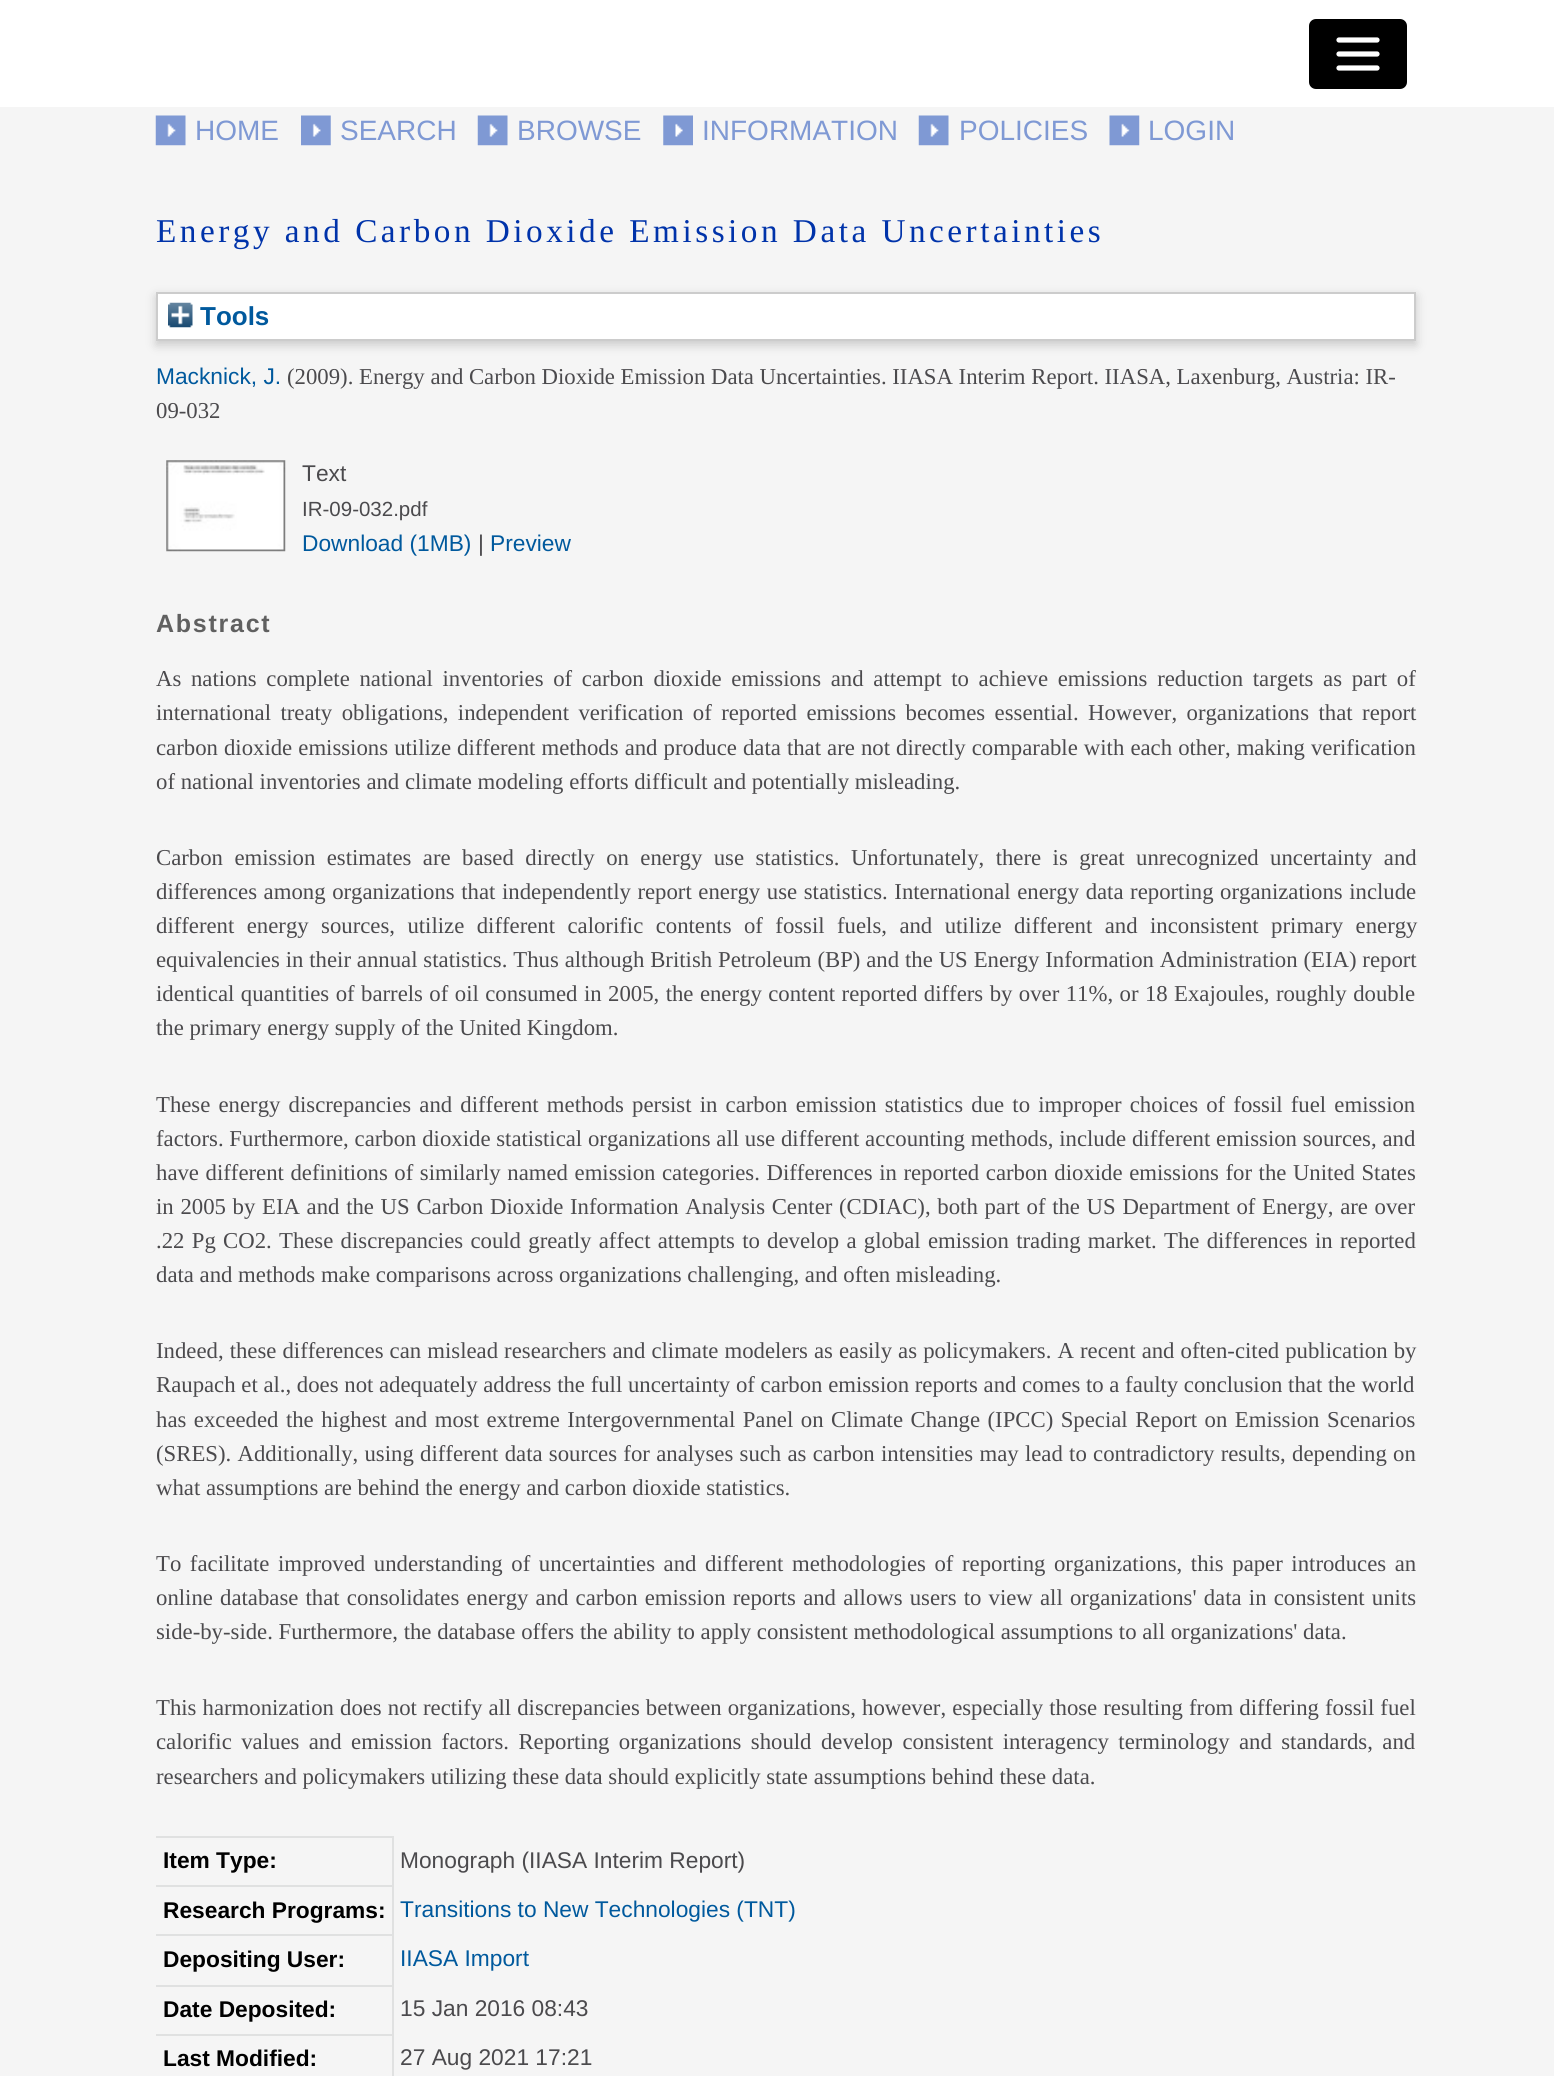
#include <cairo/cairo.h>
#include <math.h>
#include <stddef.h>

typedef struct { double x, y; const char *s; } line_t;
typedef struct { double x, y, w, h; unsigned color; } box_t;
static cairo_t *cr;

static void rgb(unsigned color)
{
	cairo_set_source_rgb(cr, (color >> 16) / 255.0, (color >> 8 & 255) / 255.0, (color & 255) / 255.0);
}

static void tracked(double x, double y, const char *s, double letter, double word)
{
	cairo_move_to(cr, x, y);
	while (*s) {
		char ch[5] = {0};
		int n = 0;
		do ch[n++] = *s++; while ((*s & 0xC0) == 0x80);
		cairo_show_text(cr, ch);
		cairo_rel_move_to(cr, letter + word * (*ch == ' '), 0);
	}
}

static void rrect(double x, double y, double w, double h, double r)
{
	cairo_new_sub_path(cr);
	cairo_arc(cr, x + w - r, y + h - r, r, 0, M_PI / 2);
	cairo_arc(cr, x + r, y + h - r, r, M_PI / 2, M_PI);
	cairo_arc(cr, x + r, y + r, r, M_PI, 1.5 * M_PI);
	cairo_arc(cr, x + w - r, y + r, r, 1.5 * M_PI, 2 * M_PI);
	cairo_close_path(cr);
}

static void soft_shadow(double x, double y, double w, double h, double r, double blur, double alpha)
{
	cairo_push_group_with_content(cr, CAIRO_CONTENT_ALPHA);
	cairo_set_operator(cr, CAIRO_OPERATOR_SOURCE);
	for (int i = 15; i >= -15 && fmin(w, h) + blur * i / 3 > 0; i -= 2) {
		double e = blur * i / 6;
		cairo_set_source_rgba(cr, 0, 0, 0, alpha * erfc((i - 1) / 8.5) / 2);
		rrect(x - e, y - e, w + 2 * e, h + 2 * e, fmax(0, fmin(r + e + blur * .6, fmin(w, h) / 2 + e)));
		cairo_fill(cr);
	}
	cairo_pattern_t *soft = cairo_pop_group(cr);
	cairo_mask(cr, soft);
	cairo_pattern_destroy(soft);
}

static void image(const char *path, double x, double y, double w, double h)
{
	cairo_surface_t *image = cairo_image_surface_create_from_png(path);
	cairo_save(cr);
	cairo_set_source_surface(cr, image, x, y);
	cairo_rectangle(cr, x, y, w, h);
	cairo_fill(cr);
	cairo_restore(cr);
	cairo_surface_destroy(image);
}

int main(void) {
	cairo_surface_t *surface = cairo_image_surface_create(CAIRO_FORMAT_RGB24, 1554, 2076);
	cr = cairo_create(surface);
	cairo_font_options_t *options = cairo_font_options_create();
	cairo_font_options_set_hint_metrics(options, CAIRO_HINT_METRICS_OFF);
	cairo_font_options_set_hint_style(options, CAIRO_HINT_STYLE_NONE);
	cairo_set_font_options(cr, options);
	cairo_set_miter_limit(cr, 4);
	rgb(0xf5f5f5);
	cairo_paint(cr);
	rgb(0xffffff);
	cairo_rectangle(cr, 0, 0, 1554, 107);
	cairo_fill(cr);
	rgb(0x000000);
	rrect(1309, 19, 98, 70, 7);
	cairo_fill(cr);
	cairo_new_path(cr);
	cairo_move_to(cr, 1339, 40);
	cairo_line_to(cr, 1377, 40);
	cairo_move_to(cr, 1339, 54);
	cairo_line_to(cr, 1377, 54);
	cairo_move_to(cr, 1339, 68);
	cairo_line_to(cr, 1377, 68);
	rgb(0xffffff);
	cairo_set_line_width(cr, 5.2);
	cairo_set_line_cap(cr, CAIRO_LINE_CAP_ROUND);
	cairo_stroke(cr);
	image("img/1.png", 155, 115, 31, 31);
	image("img/2.png", 301, 115, 30, 31);
	image("img/3.png", 477, 115, 31, 31);
	image("img/4.png", 663, 115, 30, 31);
	image("img/3.png", 918, 115, 31, 31);
	image("img/5.png", 1109, 115, 31, 31);
	rgb(0x646464);
	soft_shadow(156, 296, 1260, 49, 0, 5, 0.3);
	rgb(0xffffff);
	cairo_rectangle(cr, 157, 293, 1258, 47);
	cairo_fill_preserve(cr);
	rgb(0xcccccc);
	cairo_set_line_width(cr, 2);
	cairo_set_line_cap(cr, CAIRO_LINE_CAP_BUTT);
	cairo_stroke(cr);
	image("img/6.png", 168, 302, 25, 26);
	image("img/7.png", 166, 460, 120, 92);
	{
		static const box_t items[] = {
			{156, 1836, 238, 2, 0xe0e1e1},
			{156, 1885, 238, 2, 0xe0e1e1},
			{156, 1934, 238, 2, 0xe0e1e1},
			{156, 1985, 238, 2, 0xe0e1e1},
			{156, 2034, 238, 2, 0xe0e1e1},
			{392, 2034, 2, 42, 0xe0e1e1},
			{392, 1985, 2, 50, 0xe0e1e1},
			{392, 1934, 2, 52, 0xe0e1e1},
			{392, 1885, 2, 51, 0xe0e1e1},
			{392, 1836, 2, 51, 0xe0e1e1},
		};
		for (size_t i = 0; i < sizeof items / sizeof *items; i++) {
			rgb(items[i].color);
			cairo_rectangle(cr, items[i].x, items[i].y, items[i].w, items[i].h);
			cairo_fill(cr);
		}
	}
	cairo_select_font_face(cr, "Liberation Sans", CAIRO_FONT_SLANT_NORMAL, CAIRO_FONT_WEIGHT_NORMAL);
	cairo_set_font_size(cr, 28);
	rgb(0x7f99d4);
	{
		static const line_t items[] = {
			{195, 140, "HOME"},
			{340, 140, "SEARCH"},
			{517, 140, "BROWSE"},
			{702, 140, "INFORMATION"},
			{959, 140, "POLICIES"},
			{1148, 140, "LOGIN"},
		};
		for (size_t i = 0; i < sizeof items / sizeof *items; i++) {
			cairo_move_to(cr, items[i].x, items[i].y);
			cairo_show_text(cr, items[i].s);
		}
	}
	cairo_select_font_face(cr, "Liberation Serif", CAIRO_FONT_SLANT_NORMAL, CAIRO_FONT_WEIGHT_NORMAL);
	cairo_set_font_size(cr, 33.25);
	rgb(0x0033aa);
	tracked(156, 242, "Energy and Carbon Dioxide Emission Data Uncertainties", 3.5, 0);
	cairo_select_font_face(cr, "Liberation Sans", CAIRO_FONT_SLANT_NORMAL, CAIRO_FONT_WEIGHT_BOLD);
	cairo_set_font_size(cr, 26);
	rgb(0x00599d);
	cairo_move_to(cr, 200, 325);
	cairo_show_text(cr, "Tools");
	cairo_select_font_face(cr, "Liberation Sans", CAIRO_FONT_SLANT_NORMAL, CAIRO_FONT_WEIGHT_NORMAL);
	cairo_set_font_size(cr, 22.75);
	cairo_move_to(cr, 156, 384);
	cairo_show_text(cr, "Macknick, J.");
	cairo_select_font_face(cr, "Liberation Serif", CAIRO_FONT_SLANT_NORMAL, CAIRO_FONT_WEIGHT_NORMAL);
	rgb(0x4b4a4d);
	cairo_move_to(cr, 287, 384);
	cairo_show_text(cr, "(2009). Energy and Carbon Dioxide Emission Data Uncertainties. IIASA Interim Report. IIASA, Laxenburg, Austria: IR-");
	cairo_move_to(cr, 156, 418);
	cairo_show_text(cr, "09-032");
	cairo_select_font_face(cr, "Liberation Sans", CAIRO_FONT_SLANT_NORMAL, CAIRO_FONT_WEIGHT_NORMAL);
	cairo_move_to(cr, 302, 481);
	cairo_show_text(cr, "Text");
	cairo_set_font_size(cr, 20.5);
	cairo_move_to(cr, 302, 516);
	cairo_show_text(cr, "IR-09-032.pdf");
	cairo_set_font_size(cr, 22.75);
	rgb(0x00599d);
	cairo_move_to(cr, 302, 551);
	cairo_show_text(cr, "Download (1MB)");
	rgb(0x4b4a4d);
	cairo_move_to(cr, 478, 551);
	cairo_show_text(cr, "|");
	rgb(0x00599d);
	cairo_move_to(cr, 490, 551);
	cairo_show_text(cr, "Preview");
	cairo_select_font_face(cr, "Liberation Sans", CAIRO_FONT_SLANT_NORMAL, CAIRO_FONT_WEIGHT_BOLD);
	cairo_set_font_size(cr, 25);
	rgb(0x606060);
	tracked(156, 632, "Abstract", 1.75, 0);
	cairo_select_font_face(cr, "Liberation Serif", CAIRO_FONT_SLANT_NORMAL, CAIRO_FONT_WEIGHT_NORMAL);
	cairo_set_font_size(cr, 22.75);
	rgb(0x4b4a4d);
	tracked(156, 686, "As nations complete national inventories of carbon dioxide emissions and attempt to achieve emissions reduction targets as part of", 0, 4);
	tracked(156, 720, "international treaty obligations, independent verification of reported emissions becomes essential. However, organizations that report", 0, 3.75);
	tracked(156, 755, "carbon dioxide emissions utilize different methods and produce data that are not directly comparable with each other, making verification", 0, 0.4);
	cairo_move_to(cr, 156, 789);
	cairo_show_text(cr, "of national inventories and climate modeling efforts difficult and potentially misleading.");
	tracked(156, 865, "Carbon emission estimates are based directly on energy use statistics. Unfortunately, there is great unrecognized uncertainty and", 0, 5.75);
	tracked(156, 899, "differences among organizations that independently report energy use statistics. International energy data reporting organizations include", 0, 0.9);
	tracked(156, 933, "different energy sources, utilize different calorific contents of fossil fuels, and utilize different and inconsistent primary energy", 0, 6.75);
	tracked(156, 967, "equivalencies in their annual statistics. Thus although British Petroleum (BP) and the US Energy Information Administration (EIA) report", 0, 0.2);
	tracked(156, 1001, "identical quantities of barrels of oil consumed in 2005, the energy content reported differs by over 11%, or 18 Exajoules, roughly double", 0, 0.75);
	cairo_move_to(cr, 156, 1035);
	cairo_show_text(cr, "the primary energy supply of the United Kingdom.");
	tracked(156, 1112, "These energy discrepancies and different methods persist in carbon emission statistics due to improper choices of fossil fuel emission", 0, 2.5);
	tracked(156, 1146, "factors. Furthermore, carbon dioxide statistical organizations all use different accounting methods, include different emission sources, and", 0, 0.1);
	tracked(156, 1180, "have different definitions of similarly named emission categories. Differences in reported carbon dioxide emissions for the United States", 0, 0.9);
	tracked(156, 1214, "in 2005 by EIA and the US Carbon Dioxide Information Analysis Center (CDIAC), both part of the US Department of Energy, are over", 0, 1);
	tracked(156, 1248, ".22 Pg CO2. These discrepancies could greatly affect attempts to develop a global emission trading market. The differences in reported", 0, 1.6);
	cairo_move_to(cr, 156, 1282);
	cairo_show_text(cr, "data and methods make comparisons across organizations challenging, and often misleading.");
	tracked(156, 1358, "Indeed, these differences can mislead researchers and climate modelers as easily as policymakers. A recent and often-cited publication by", 0, 0.4);
	cairo_move_to(cr, 156, 1392);
	cairo_show_text(cr, "Raupach et al., does not adequately address the full uncertainty of carbon emission reports and comes to a faulty conclusion that the world");
	tracked(156, 1427, "has exceeded the highest and most extreme Intergovernmental Panel on Climate Change (IPCC) Special Report on Emission Scenarios", 0, 1.8);
	tracked(156, 1461, "(SRES). Additionally, using different data sources for analyses such as carbon intensities may lead to contradictory results, depending on", 0, 0.6);
	cairo_move_to(cr, 156, 1495);
	cairo_show_text(cr, "what assumptions are behind the energy and carbon dioxide statistics.");
	tracked(156, 1571, "To facilitate improved understanding of uncertainties and different methodologies of reporting organizations, this paper introduces an", 0, 2.9);
	tracked(156, 1605, "online database that consolidates energy and carbon emission reports and allows users to view all organizations' data in consistent units", 0, 1.5);
	cairo_move_to(cr, 156, 1639);
	cairo_show_text(cr, "side-by-side. Furthermore, the database offers the ability to apply consistent methodological assumptions to all organizations' data.");
	tracked(156, 1715, "This harmonization does not rectify all discrepancies between organizations, however, especially those resulting from differing fossil fuel", 0, 0.4);
	tracked(156, 1749, "calorific values and emission factors. Reporting organizations should develop consistent interagency terminology and standards, and", 0, 3.75);
	cairo_move_to(cr, 156, 1784);
	cairo_show_text(cr, "researchers and policymakers utilizing these data should explicitly state assumptions behind these data.");
	cairo_select_font_face(cr, "Liberation Sans", CAIRO_FONT_SLANT_NORMAL, CAIRO_FONT_WEIGHT_BOLD);
	rgb(0x000000);
	cairo_move_to(cr, 163, 1868);
	cairo_show_text(cr, "Item Type:");
	cairo_select_font_face(cr, "Liberation Sans", CAIRO_FONT_SLANT_NORMAL, CAIRO_FONT_WEIGHT_NORMAL);
	rgb(0x4b4a4d);
	cairo_move_to(cr, 400, 1868);
	cairo_show_text(cr, "Monograph (IIASA Interim Report)");
	cairo_select_font_face(cr, "Liberation Sans", CAIRO_FONT_SLANT_NORMAL, CAIRO_FONT_WEIGHT_BOLD);
	rgb(0x000000);
	cairo_move_to(cr, 163, 1918);
	cairo_show_text(cr, "Research Programs:");
	cairo_select_font_face(cr, "Liberation Sans", CAIRO_FONT_SLANT_NORMAL, CAIRO_FONT_WEIGHT_NORMAL);
	rgb(0x00599d);
	cairo_move_to(cr, 400, 1917);
	cairo_show_text(cr, "Transitions to New Technologies (TNT)");
	cairo_select_font_face(cr, "Liberation Sans", CAIRO_FONT_SLANT_NORMAL, CAIRO_FONT_WEIGHT_BOLD);
	rgb(0x000000);
	cairo_move_to(cr, 163, 1967);
	cairo_show_text(cr, "Depositing User:");
	cairo_select_font_face(cr, "Liberation Sans", CAIRO_FONT_SLANT_NORMAL, CAIRO_FONT_WEIGHT_NORMAL);
	rgb(0x00599d);
	cairo_move_to(cr, 400, 1966);
	cairo_show_text(cr, "IIASA Import");
	cairo_select_font_face(cr, "Liberation Sans", CAIRO_FONT_SLANT_NORMAL, CAIRO_FONT_WEIGHT_BOLD);
	rgb(0x000000);
	cairo_move_to(cr, 163, 2017);
	cairo_show_text(cr, "Date Deposited:");
	cairo_select_font_face(cr, "Liberation Sans", CAIRO_FONT_SLANT_NORMAL, CAIRO_FONT_WEIGHT_NORMAL);
	rgb(0x4b4a4d);
	cairo_move_to(cr, 400, 2016);
	cairo_show_text(cr, "15 Jan 2016 08:43");
	cairo_select_font_face(cr, "Liberation Sans", CAIRO_FONT_SLANT_NORMAL, CAIRO_FONT_WEIGHT_BOLD);
	rgb(0x000000);
	cairo_move_to(cr, 163, 2066);
	cairo_show_text(cr, "Last Modified:");
	cairo_select_font_face(cr, "Liberation Sans", CAIRO_FONT_SLANT_NORMAL, CAIRO_FONT_WEIGHT_NORMAL);
	rgb(0x4b4a4d);
	cairo_move_to(cr, 400, 2065);
	cairo_show_text(cr, "27 Aug 2021 17:21");
	cairo_surface_write_to_png(surface, "page.png");
	cairo_font_options_destroy(options);
	cairo_destroy(cr);
	cairo_surface_destroy(surface);
	return 0;
}
